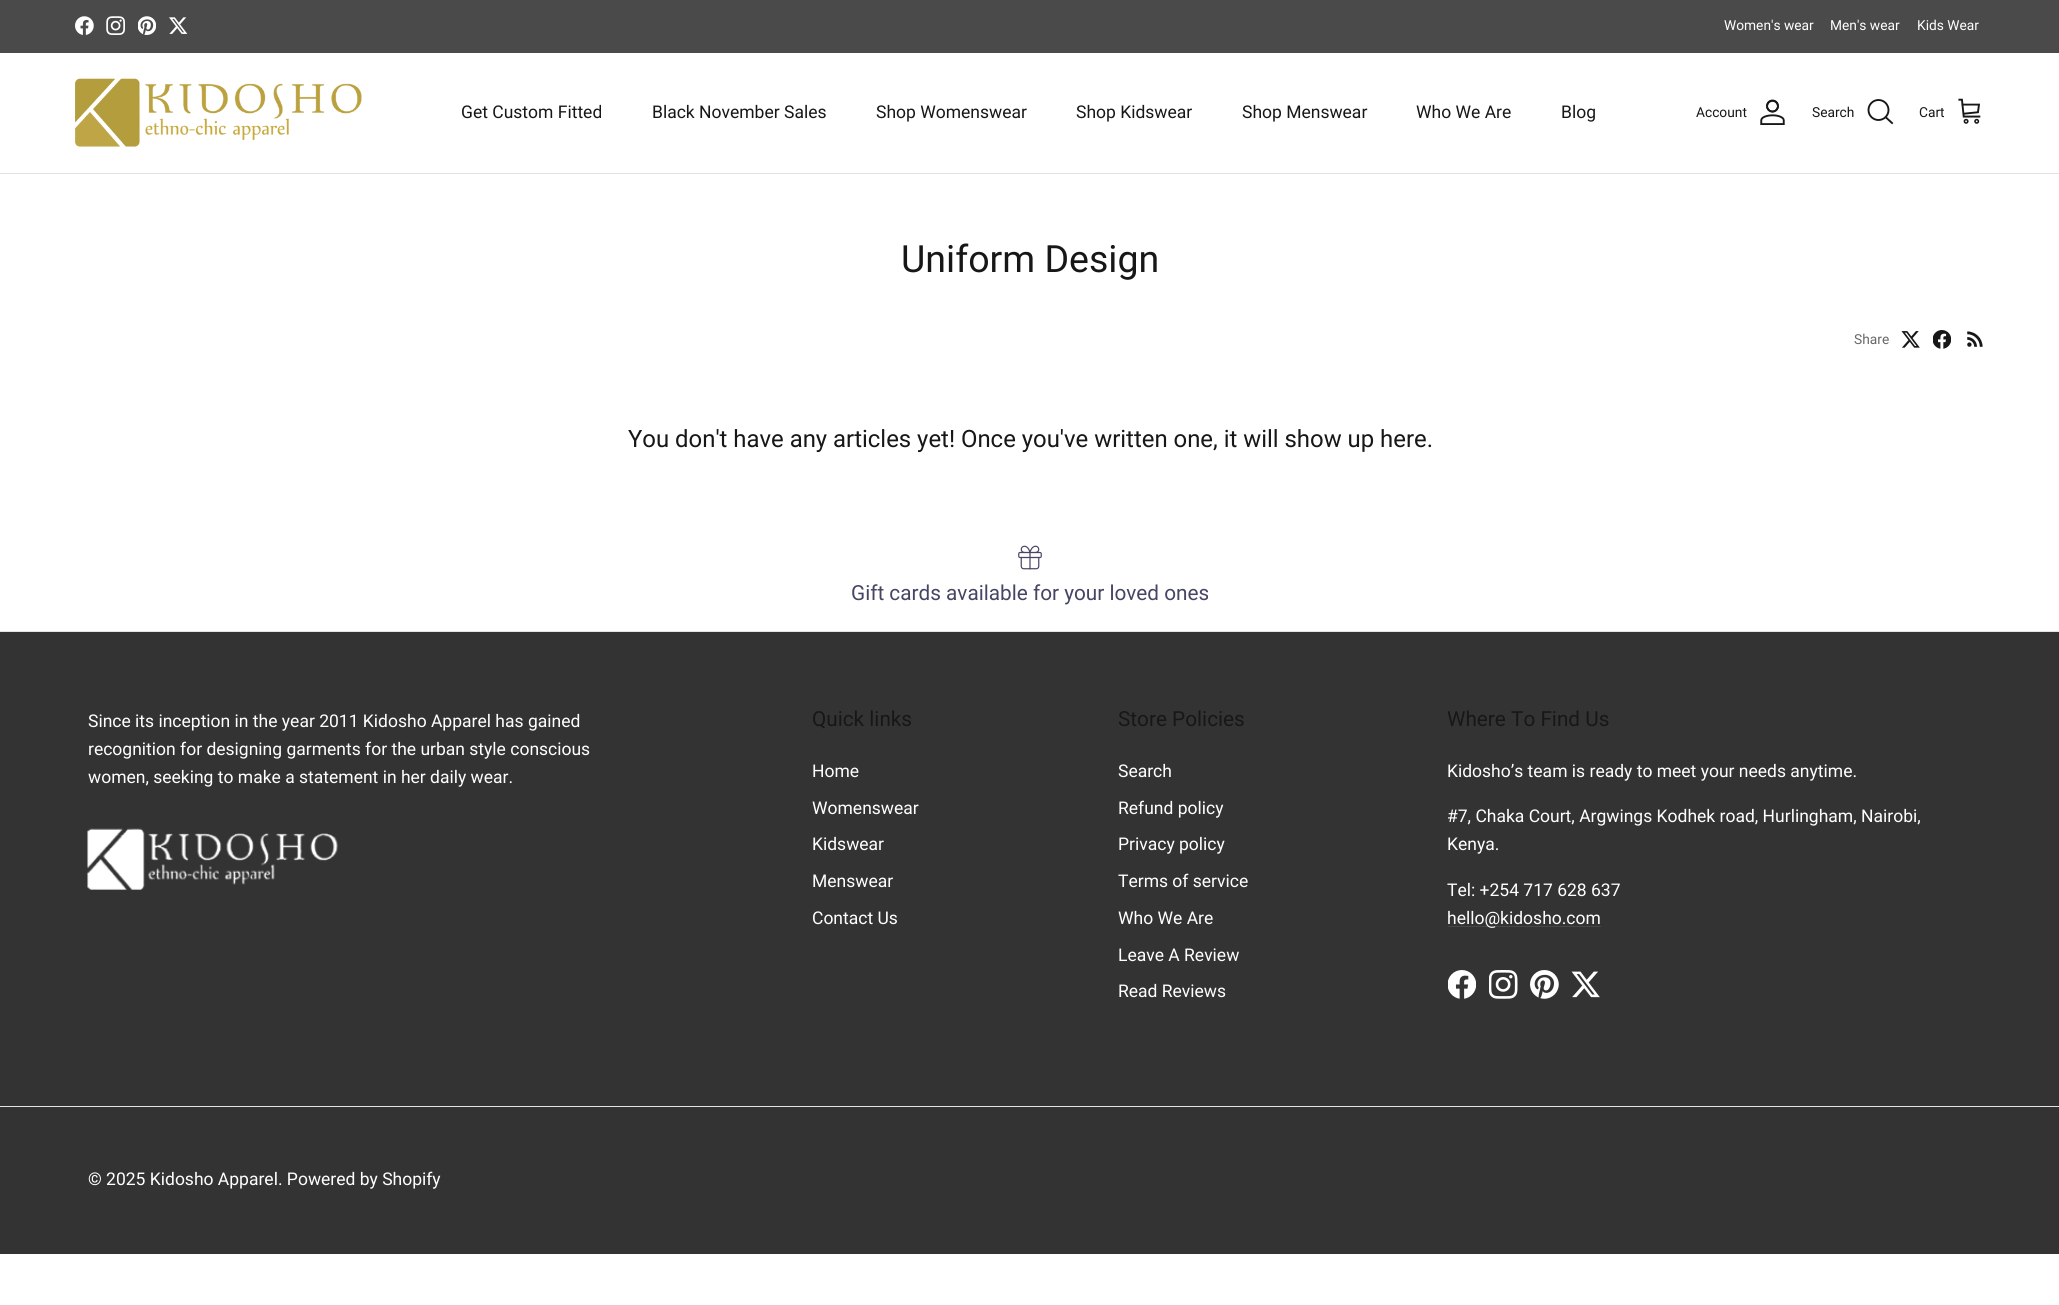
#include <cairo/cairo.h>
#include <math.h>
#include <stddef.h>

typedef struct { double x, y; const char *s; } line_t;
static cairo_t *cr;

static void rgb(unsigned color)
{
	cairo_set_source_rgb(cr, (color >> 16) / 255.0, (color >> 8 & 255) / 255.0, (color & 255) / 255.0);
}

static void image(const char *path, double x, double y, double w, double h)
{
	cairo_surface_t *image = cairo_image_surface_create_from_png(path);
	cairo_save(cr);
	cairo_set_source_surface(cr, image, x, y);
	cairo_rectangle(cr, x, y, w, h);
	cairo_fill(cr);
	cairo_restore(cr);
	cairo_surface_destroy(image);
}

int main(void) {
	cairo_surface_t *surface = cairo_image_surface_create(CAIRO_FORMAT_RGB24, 2059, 1305);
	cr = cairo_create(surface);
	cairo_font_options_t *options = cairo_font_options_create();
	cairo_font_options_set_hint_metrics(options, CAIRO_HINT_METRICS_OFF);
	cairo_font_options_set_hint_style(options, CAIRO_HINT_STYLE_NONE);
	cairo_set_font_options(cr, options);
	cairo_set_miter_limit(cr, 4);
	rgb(0xffffff);
	cairo_paint(cr);
	rgb(0x4a4a4a);
	cairo_rectangle(cr, 0, 0, 2059, 53);
	cairo_fill(cr);
	image("img/1.png", 75, 16, 19, 19);
	image("img/2.png", 106, 16, 19, 19);
	image("img/3.png", 138, 16, 18, 19);
	image("img/4.png", 169, 17, 19, 17);
	rgb(0xe2e2e2);
	cairo_rectangle(cr, 0, 173, 2059, 1);
	cairo_fill(cr);
	image("img/5.png", 75, 78, 287, 69);
	image("img/6.png", 1760, 99, 25, 26);
	cairo_arc(cr, 1878.5, 110, 10, 0, 2 * M_PI);
	rgb(0x171717);
	cairo_set_line_width(cr, 1.9);
	cairo_stroke(cr);
	cairo_new_path(cr);
	cairo_move_to(cr, 1886, 117.5);
	cairo_line_to(cr, 1892, 123);
	cairo_set_line_cap(cr, CAIRO_LINE_CAP_SQUARE);
	cairo_stroke(cr);
	image("img/7.png", 1958, 98, 23, 26);
	image("img/8.png", 1901, 331, 19, 17);
	image("img/9.png", 1933, 330, 18, 19);
	image("img/10.png", 1967, 331, 16, 16);
	image("img/11.png", 1018, 545, 24, 25);
	rgb(0x333333);
	cairo_rectangle(cr, 0, 632, 2059, 474);
	cairo_fill(cr);
	rgb(0xe4e4e4);
	cairo_rectangle(cr, 0, 631, 2059, 1);
	cairo_fill(cr);
	image("img/12.png", 87, 828, 251, 62);
	rgb(0x484849);
	cairo_rectangle(cr, 1448, 926, 153, 1);
	cairo_fill(cr);
	image("img/13.png", 1448, 970, 28, 29);
	image("img/14.png", 1489, 970, 29, 29);
	image("img/15.png", 1530, 970, 29, 29);
	image("img/16.png", 1571, 971, 29, 27);
	rgb(0x333333);
	cairo_rectangle(cr, 0, 1107, 2059, 147);
	cairo_fill(cr);
	rgb(0xe4e4e4);
	cairo_rectangle(cr, 0, 1106, 2059, 1);
	cairo_fill(cr);
	cairo_select_font_face(cr, "Roboto", CAIRO_FONT_SLANT_NORMAL, CAIRO_FONT_WEIGHT_NORMAL);
	cairo_set_font_size(cr, 13.75);
	rgb(0xffffff);
	{
		static const line_t items[] = {
			{1724, 30, "Women's wear"},
			{1830, 30, "Men's wear"},
			{1917, 30, "Kids Wear"},
		};
		for (size_t i = 0; i < sizeof items / sizeof *items; i++) {
			cairo_move_to(cr, items[i].x, items[i].y);
			cairo_show_text(cr, items[i].s);
		}
	}
	cairo_set_font_size(cr, 17.5);
	rgb(0x171717);
	{
		static const line_t items[] = {
			{461, 118, "Get Custom Fitted"},
			{652, 118, "Black November Sales"},
			{876, 118, "Shop Womenswear"},
			{1076, 118, "Shop Kidswear"},
			{1242, 118, "Shop Menswear"},
			{1416, 118, "Who We Are"},
			{1561, 118, "Blog"},
		};
		for (size_t i = 0; i < sizeof items / sizeof *items; i++) {
			cairo_move_to(cr, items[i].x, items[i].y);
			cairo_show_text(cr, items[i].s);
		}
	}
	cairo_set_font_size(cr, 13.75);
	{
		static const line_t items[] = {
			{1696, 117, "Account"},
			{1812, 117, "Search"},
			{1919, 117, "Cart"},
		};
		for (size_t i = 0; i < sizeof items / sizeof *items; i++) {
			cairo_move_to(cr, items[i].x, items[i].y);
			cairo_show_text(cr, items[i].s);
		}
	}
	cairo_set_font_size(cr, 37.5);
	cairo_move_to(cr, 901, 272);
	cairo_show_text(cr, "Uniform Design");
	cairo_set_font_size(cr, 13.75);
	rgb(0x676869);
	cairo_move_to(cr, 1854, 344);
	cairo_show_text(cr, "Share");
	cairo_set_font_size(cr, 23.9);
	rgb(0x171717);
	cairo_move_to(cr, 628, 447);
	cairo_show_text(cr, "You don't have any articles yet! Once you've written one, it will show up here.");
	cairo_set_font_size(cr, 20.75);
	rgb(0x454564);
	cairo_move_to(cr, 851, 600);
	cairo_show_text(cr, "Gift cards available for your loved ones");
	cairo_set_font_size(cr, 17.5);
	rgb(0xffffff);
	{
		static const line_t items[] = {
			{88, 727, "Since its inception in the year 2011 Kidosho Apparel has gained"},
			{88, 755, "recognition for designing garments for the urban style conscious"},
			{88, 783, "women, seeking to make a statement in her daily wear."},
		};
		for (size_t i = 0; i < sizeof items / sizeof *items; i++) {
			cairo_move_to(cr, items[i].x, items[i].y);
			cairo_show_text(cr, items[i].s);
		}
	}
	cairo_set_font_size(cr, 20.75);
	rgb(0x171717);
	cairo_move_to(cr, 812, 726);
	cairo_show_text(cr, "Quick links");
	cairo_set_font_size(cr, 17.5);
	rgb(0xffffff);
	{
		static const line_t items[] = {
			{812, 777, "Home"},
			{812, 814, "Womenswear"},
			{812, 850, "Kidswear"},
			{812, 887, "Menswear"},
			{812, 924, "Contact Us"},
		};
		for (size_t i = 0; i < sizeof items / sizeof *items; i++) {
			cairo_move_to(cr, items[i].x, items[i].y);
			cairo_show_text(cr, items[i].s);
		}
	}
	cairo_set_font_size(cr, 20.75);
	rgb(0x171717);
	cairo_move_to(cr, 1118, 726);
	cairo_show_text(cr, "Store Policies");
	cairo_set_font_size(cr, 17.5);
	rgb(0xffffff);
	{
		static const line_t items[] = {
			{1118, 777, "Search"},
			{1118, 814, "Refund policy"},
			{1118, 850, "Privacy policy"},
			{1118, 887, "Terms of service"},
			{1118, 924, "Who We Are"},
			{1118, 961, "Leave A Review"},
			{1118, 997, "Read Reviews"},
		};
		for (size_t i = 0; i < sizeof items / sizeof *items; i++) {
			cairo_move_to(cr, items[i].x, items[i].y);
			cairo_show_text(cr, items[i].s);
		}
	}
	cairo_set_font_size(cr, 20.75);
	rgb(0x171717);
	cairo_move_to(cr, 1447, 726);
	cairo_show_text(cr, "Where To Find Us");
	cairo_set_font_size(cr, 17.5);
	rgb(0xffffff);
	{
		static const line_t items[] = {
			{1447, 777, "Kidosho’s team is ready to meet your needs anytime."},
			{1447, 822, "#7, Chaka Court, Argwings Kodhek road, Hurlingham, Nairobi,"},
			{1447, 850, "Kenya."},
			{1447, 896, "Tel: +254 717 628 637"},
			{1447, 924, "hello@kidosho.com"},
			{88, 1185, "© 2025 Kidosho Apparel. Powered by Shopify"},
		};
		for (size_t i = 0; i < sizeof items / sizeof *items; i++) {
			cairo_move_to(cr, items[i].x, items[i].y);
			cairo_show_text(cr, items[i].s);
		}
	}
	cairo_surface_write_to_png(surface, "page.png");
	cairo_font_options_destroy(options);
	cairo_destroy(cr);
	cairo_surface_destroy(surface);
	return 0;
}
